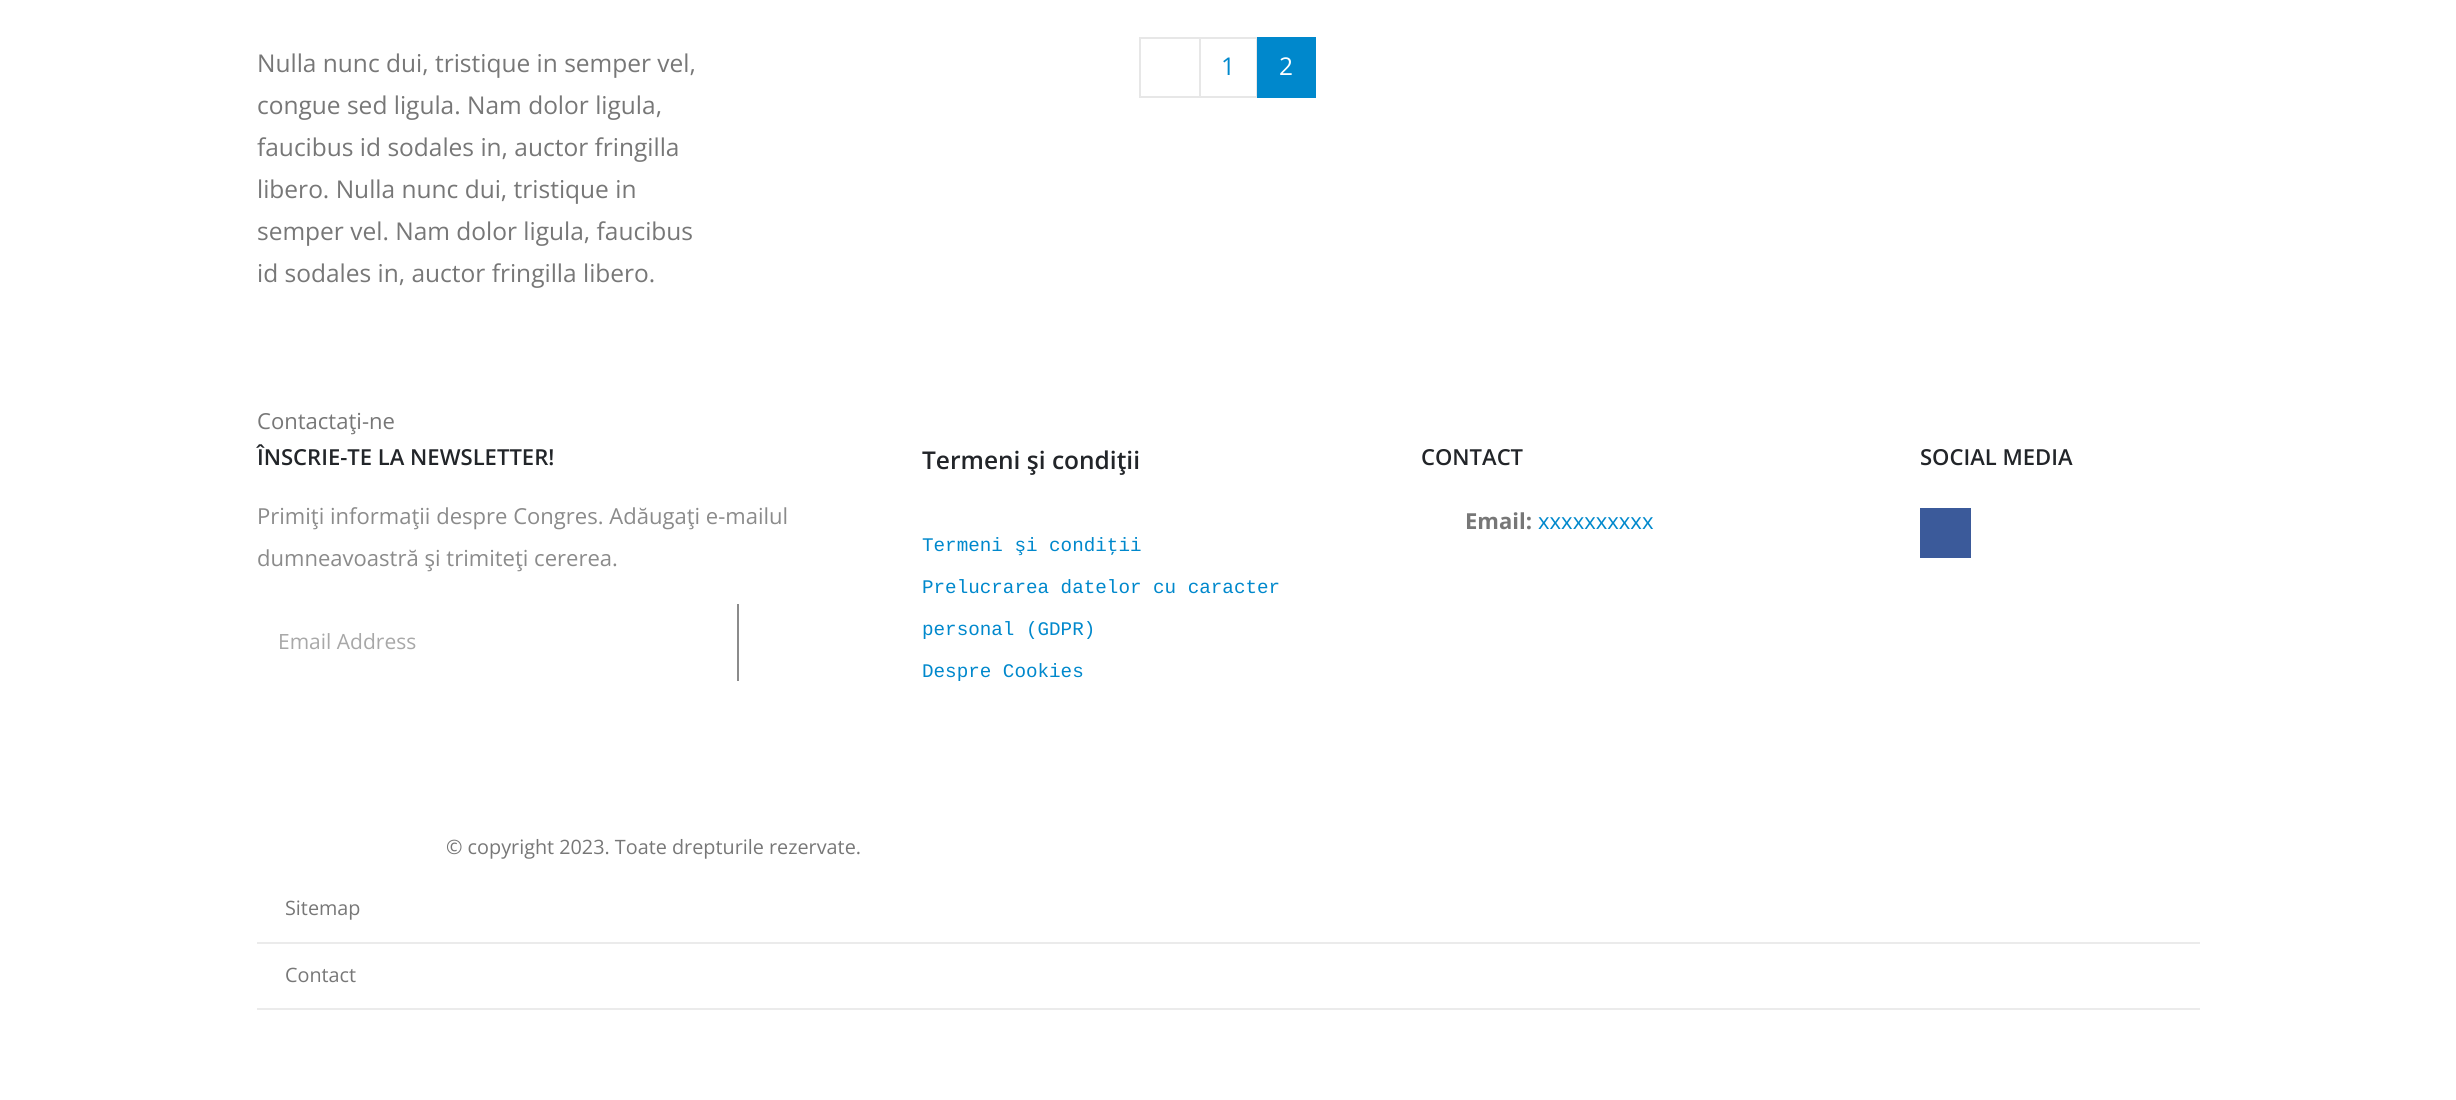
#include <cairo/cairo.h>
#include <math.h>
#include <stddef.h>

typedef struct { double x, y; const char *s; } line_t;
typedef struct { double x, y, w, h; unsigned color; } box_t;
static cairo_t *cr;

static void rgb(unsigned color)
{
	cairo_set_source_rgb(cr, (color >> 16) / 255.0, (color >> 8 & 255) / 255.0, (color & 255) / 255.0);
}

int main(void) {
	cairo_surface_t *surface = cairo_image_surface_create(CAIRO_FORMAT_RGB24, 2456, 1100);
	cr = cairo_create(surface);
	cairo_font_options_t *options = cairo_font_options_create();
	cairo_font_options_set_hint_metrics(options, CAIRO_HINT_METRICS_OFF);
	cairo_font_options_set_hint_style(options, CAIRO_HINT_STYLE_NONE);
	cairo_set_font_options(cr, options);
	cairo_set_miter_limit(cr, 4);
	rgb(0xffffff);
	cairo_paint(cr);
	cairo_rectangle(cr, 1200, 38, 57, 59);
	rgb(0xe7e7e7);
	cairo_stroke(cr);
	cairo_rectangle(cr, 1140, 38, 60, 59);
	cairo_stroke(cr);
	{
		static const box_t items[] = {
			{1257, 37, 59, 61, 0x0088cc},
			{737, 604, 2, 77, 0x8b8b8b},
			{1920, 508, 51, 50, 0x3b5a9a},
			{257, 1008, 1943, 2, 0xebebeb},
			{257, 942, 1943, 2, 0xebebeb},
		};
		for (size_t i = 0; i < sizeof items / sizeof *items; i++) {
			rgb(items[i].color);
			cairo_rectangle(cr, items[i].x, items[i].y, items[i].w, items[i].h);
			cairo_fill(cr);
		}
	}
	cairo_select_font_face(cr, "Open Sans", CAIRO_FONT_SLANT_NORMAL, CAIRO_FONT_WEIGHT_NORMAL);
	cairo_set_font_size(cr, 24.5);
	rgb(0x777777);
	{
		static const line_t items[] = {
			{257, 72, "Nulla nunc dui, tristique in semper vel,"},
			{257, 114, "congue sed ligula. Nam dolor ligula,"},
			{257, 156, "faucibus id sodales in, auctor fringilla"},
			{257, 198, "libero. Nulla nunc dui, tristique in"},
			{257, 240, "semper vel. Nam dolor ligula, faucibus"},
			{257, 282, "id sodales in, auctor fringilla libero."},
		};
		for (size_t i = 0; i < sizeof items / sizeof *items; i++) {
			cairo_move_to(cr, items[i].x, items[i].y);
			cairo_show_text(cr, items[i].s);
		}
	}
	rgb(0x0088cc);
	cairo_move_to(cr, 1221, 75);
	cairo_show_text(cr, "1");
	rgb(0xffffff);
	cairo_move_to(cr, 1279, 75);
	cairo_show_text(cr, "2");
	cairo_set_font_size(cr, 22.05);
	rgb(0x777777);
	cairo_move_to(cr, 257, 429);
	cairo_show_text(cr, "Contactaţi-ne");
	cairo_select_font_face(cr, "Open Sans SemiBold", CAIRO_FONT_SLANT_NORMAL, CAIRO_FONT_WEIGHT_NORMAL);
	rgb(0x222529);
	cairo_move_to(cr, 257, 465);
	cairo_show_text(cr, "ÎNSCRIE-TE LA NEWSLETTER!");
	cairo_select_font_face(cr, "Open Sans", CAIRO_FONT_SLANT_NORMAL, CAIRO_FONT_WEIGHT_NORMAL);
	rgb(0x8b8b8b);
	cairo_move_to(cr, 257, 524);
	cairo_show_text(cr, "Primiţi informaţii despre Congres. Adăugaţi e-mailul");
	cairo_move_to(cr, 257, 566);
	cairo_show_text(cr, "dumneavoastră şi trimiteţi cererea.");
	cairo_set_font_size(cr, 21);
	rgb(0xa8a8a8);
	cairo_move_to(cr, 278, 649);
	cairo_show_text(cr, "Email Address");
	cairo_select_font_face(cr, "Open Sans SemiBold", CAIRO_FONT_SLANT_NORMAL, CAIRO_FONT_WEIGHT_NORMAL);
	cairo_set_font_size(cr, 24.5);
	rgb(0x222529);
	cairo_move_to(cr, 922, 469);
	cairo_show_text(cr, "Termeni şi condiţii");
	cairo_select_font_face(cr, "Liberation Mono", CAIRO_FONT_SLANT_NORMAL, CAIRO_FONT_WEIGHT_NORMAL);
	cairo_set_font_size(cr, 19.25);
	rgb(0x0088cc);
	{
		static const line_t items[] = {
			{922, 551, "Termeni şi condiţii"},
			{922, 593, "Prelucrarea datelor cu caracter"},
			{922, 635, "personal (GDPR)"},
			{922, 677, "Despre Cookies"},
		};
		for (size_t i = 0; i < sizeof items / sizeof *items; i++) {
			cairo_move_to(cr, items[i].x, items[i].y);
			cairo_show_text(cr, items[i].s);
		}
	}
	cairo_select_font_face(cr, "Open Sans SemiBold", CAIRO_FONT_SLANT_NORMAL, CAIRO_FONT_WEIGHT_NORMAL);
	cairo_set_font_size(cr, 22.05);
	rgb(0x222529);
	cairo_move_to(cr, 1421, 465);
	cairo_show_text(cr, "CONTACT");
	cairo_select_font_face(cr, "Open Sans", CAIRO_FONT_SLANT_NORMAL, CAIRO_FONT_WEIGHT_BOLD);
	rgb(0x777777);
	cairo_move_to(cr, 1465, 529);
	cairo_show_text(cr, "Email:");
	cairo_select_font_face(cr, "Open Sans", CAIRO_FONT_SLANT_NORMAL, CAIRO_FONT_WEIGHT_NORMAL);
	rgb(0x0088cc);
	cairo_move_to(cr, 1538, 529);
	cairo_show_text(cr, "xxxxxxxxxx");
	cairo_select_font_face(cr, "Open Sans SemiBold", CAIRO_FONT_SLANT_NORMAL, CAIRO_FONT_WEIGHT_NORMAL);
	rgb(0x222529);
	cairo_move_to(cr, 1920, 465);
	cairo_show_text(cr, "SOCIAL MEDIA");
	cairo_select_font_face(cr, "Open Sans", CAIRO_FONT_SLANT_NORMAL, CAIRO_FONT_WEIGHT_NORMAL);
	cairo_set_font_size(cr, 19.8);
	rgb(0x777777);
	{
		static const line_t items[] = {
			{446, 854, "© copyright 2023. Toate drepturile rezervate."},
			{285, 915, "Sitemap"},
			{285, 982, "Contact"},
		};
		for (size_t i = 0; i < sizeof items / sizeof *items; i++) {
			cairo_move_to(cr, items[i].x, items[i].y);
			cairo_show_text(cr, items[i].s);
		}
	}
	cairo_surface_write_to_png(surface, "page.png");
	cairo_font_options_destroy(options);
	cairo_destroy(cr);
	cairo_surface_destroy(surface);
	return 0;
}
